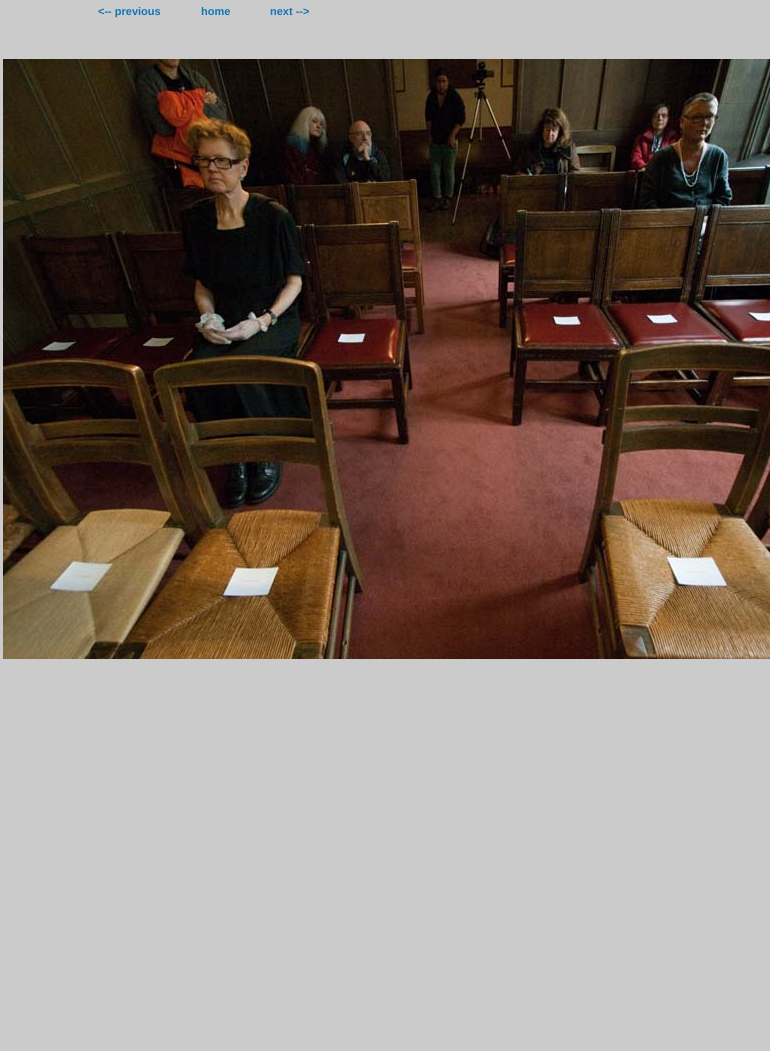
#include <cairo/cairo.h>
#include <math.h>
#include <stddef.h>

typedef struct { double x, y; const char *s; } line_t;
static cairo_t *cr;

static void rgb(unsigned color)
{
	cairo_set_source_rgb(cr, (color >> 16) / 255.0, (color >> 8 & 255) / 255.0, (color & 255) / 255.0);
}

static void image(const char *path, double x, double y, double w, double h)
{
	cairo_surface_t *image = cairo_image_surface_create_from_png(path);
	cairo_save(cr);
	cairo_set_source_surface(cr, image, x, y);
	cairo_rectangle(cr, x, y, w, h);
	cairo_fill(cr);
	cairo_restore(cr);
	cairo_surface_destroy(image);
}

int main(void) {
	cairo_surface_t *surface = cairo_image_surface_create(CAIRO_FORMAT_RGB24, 770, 1051);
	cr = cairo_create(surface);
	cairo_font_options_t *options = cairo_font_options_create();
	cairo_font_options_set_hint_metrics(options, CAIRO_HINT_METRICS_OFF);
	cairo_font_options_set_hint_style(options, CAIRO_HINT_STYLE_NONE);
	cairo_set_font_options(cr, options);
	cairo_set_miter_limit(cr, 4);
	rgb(0xcbcbcb);
	cairo_paint(cr);
	image("img/1.png", 3, 59, 767, 600);
	cairo_select_font_face(cr, "Liberation Sans", CAIRO_FONT_SLANT_NORMAL, CAIRO_FONT_WEIGHT_BOLD);
	cairo_set_font_size(cr, 11);
	rgb(0x1075b5);
	{
		static const line_t items[] = {
			{98, 15, "<-- previous"},
			{201, 15, "home"},
			{270, 15, "next -->"},
		};
		for (size_t i = 0; i < sizeof items / sizeof *items; i++) {
			cairo_move_to(cr, items[i].x, items[i].y);
			cairo_show_text(cr, items[i].s);
		}
	}
	cairo_surface_write_to_png(surface, "page.png");
	cairo_font_options_destroy(options);
	cairo_destroy(cr);
	cairo_surface_destroy(surface);
	return 0;
}
